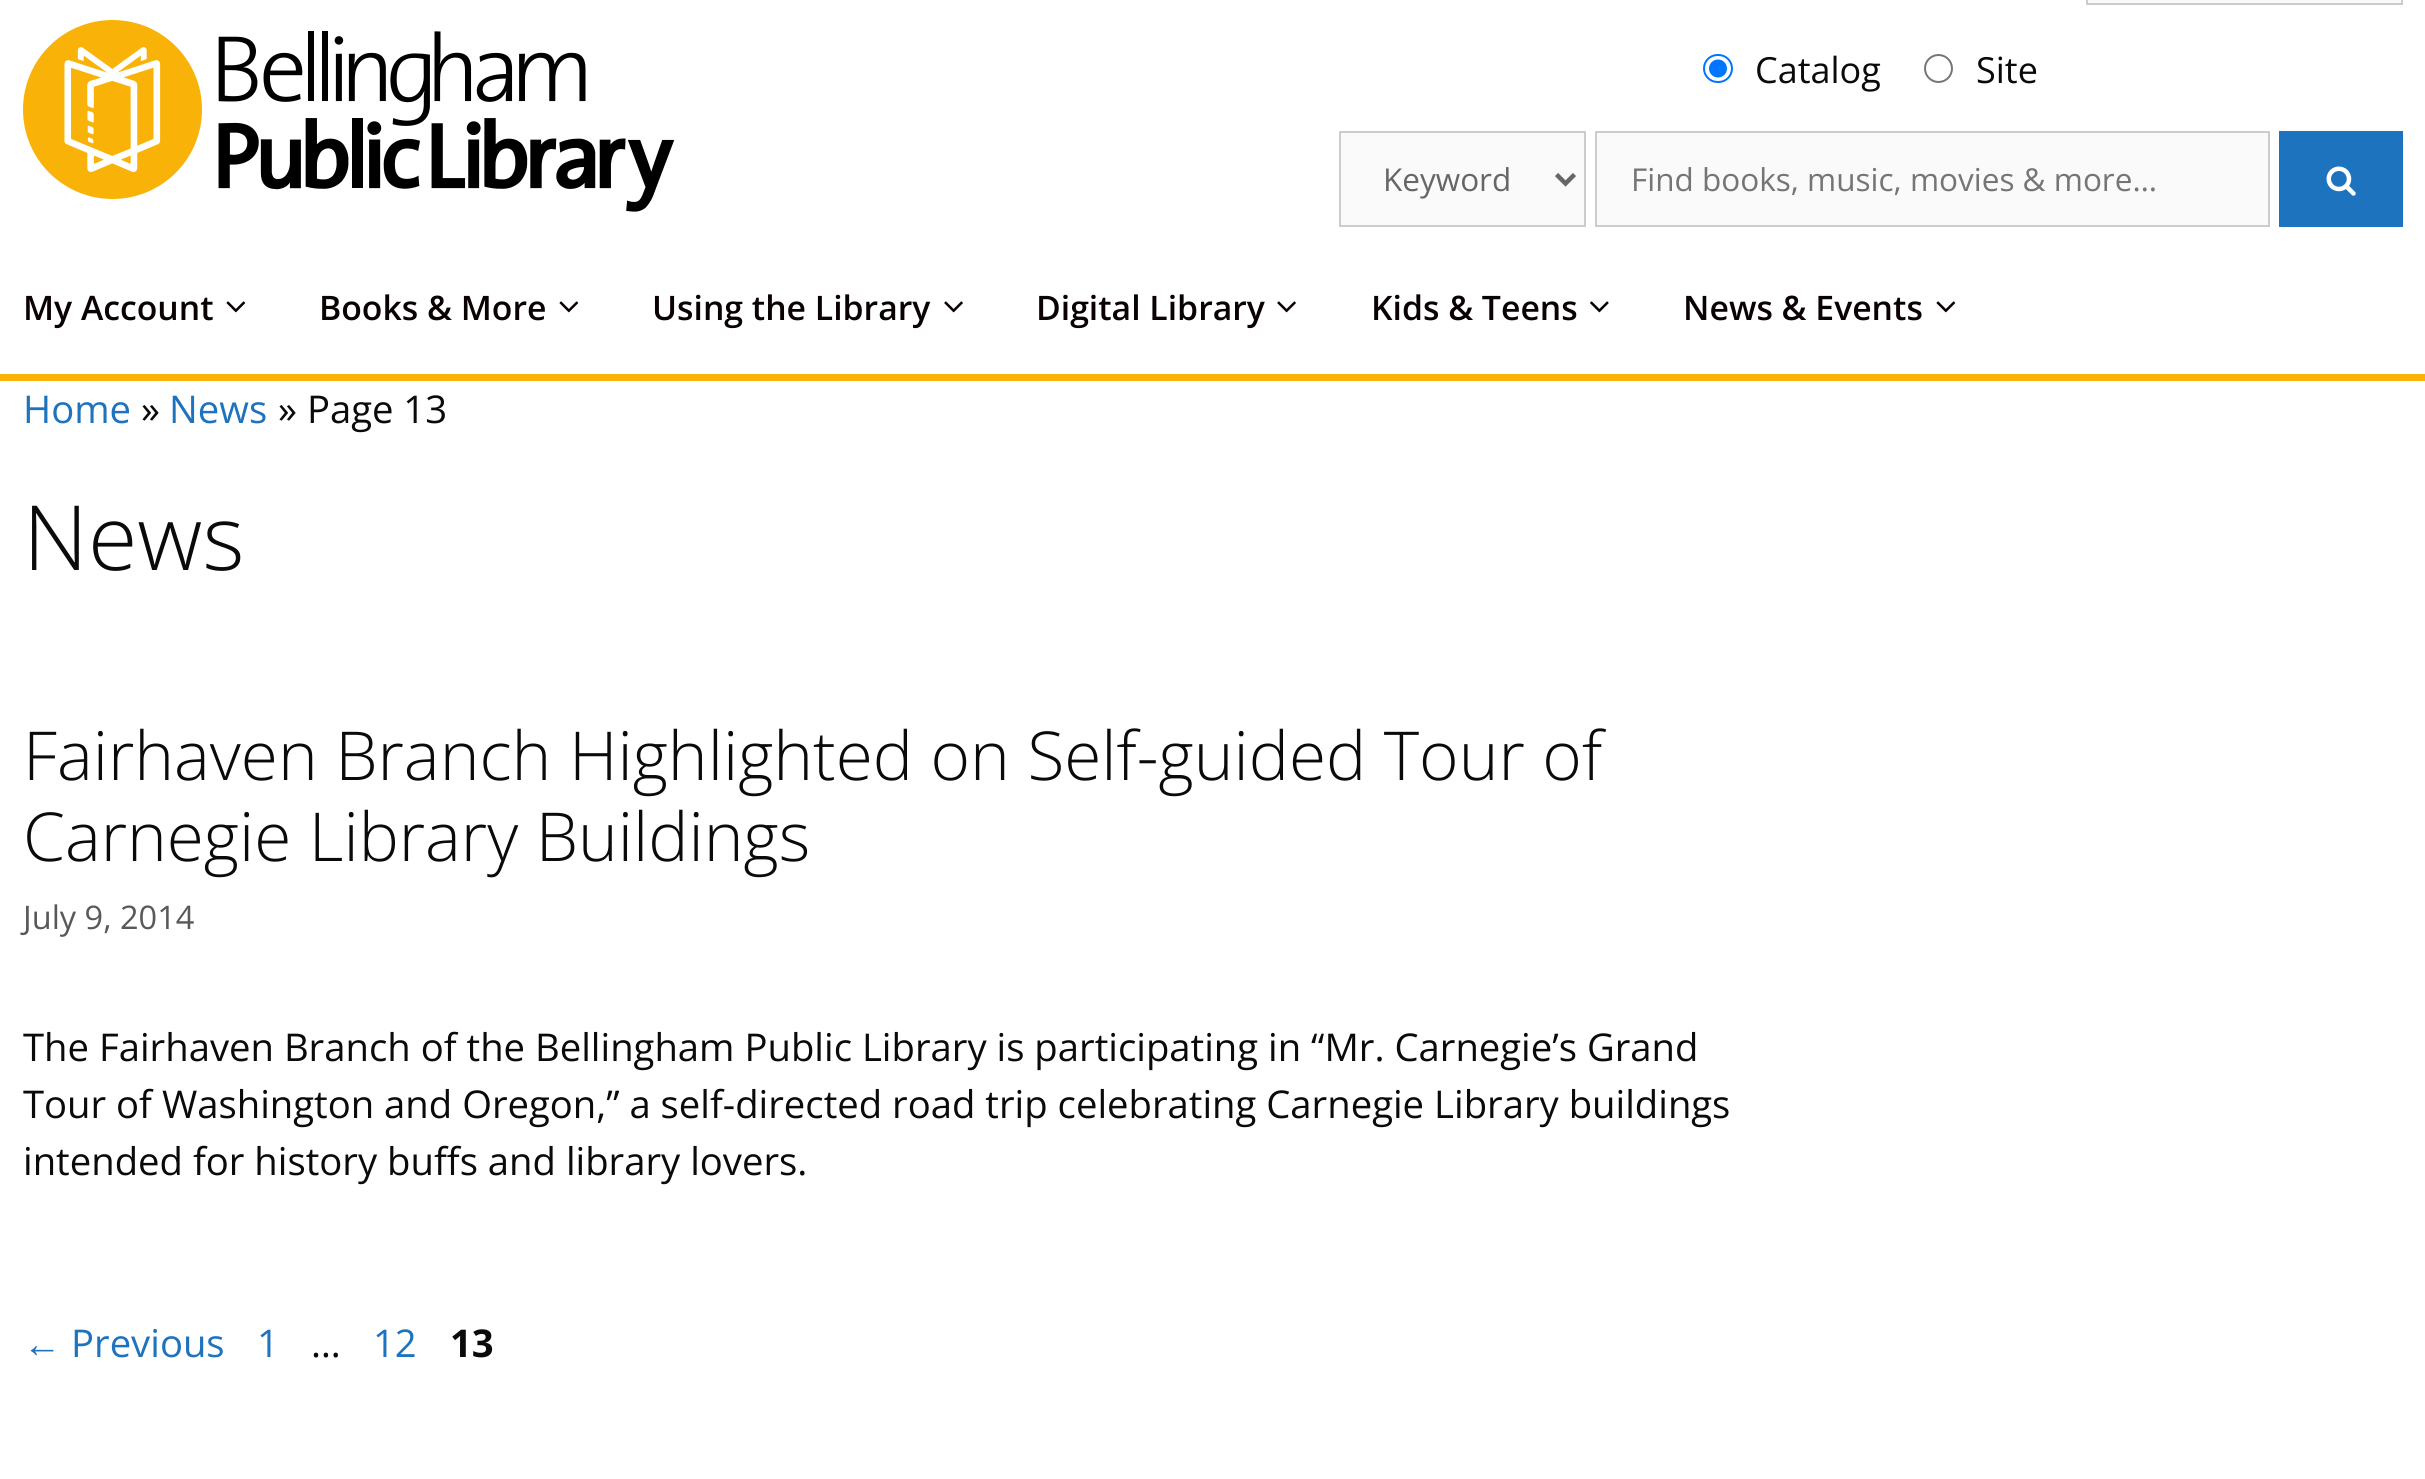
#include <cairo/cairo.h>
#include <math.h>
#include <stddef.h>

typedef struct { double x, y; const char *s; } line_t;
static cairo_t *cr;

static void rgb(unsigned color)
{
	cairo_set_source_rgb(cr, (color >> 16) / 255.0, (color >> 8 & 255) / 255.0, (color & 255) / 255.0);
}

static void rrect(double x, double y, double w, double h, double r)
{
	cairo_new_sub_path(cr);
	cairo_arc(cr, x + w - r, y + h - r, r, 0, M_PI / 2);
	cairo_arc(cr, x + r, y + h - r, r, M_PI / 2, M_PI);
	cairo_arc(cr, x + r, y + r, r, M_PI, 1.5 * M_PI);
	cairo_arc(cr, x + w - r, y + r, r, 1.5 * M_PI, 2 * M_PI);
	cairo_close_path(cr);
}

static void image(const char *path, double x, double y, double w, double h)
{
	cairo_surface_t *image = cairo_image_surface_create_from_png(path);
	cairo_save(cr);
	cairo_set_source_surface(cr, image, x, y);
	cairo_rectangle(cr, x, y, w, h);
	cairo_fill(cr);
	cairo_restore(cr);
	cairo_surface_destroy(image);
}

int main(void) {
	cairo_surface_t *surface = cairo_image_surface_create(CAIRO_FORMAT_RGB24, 2425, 1479);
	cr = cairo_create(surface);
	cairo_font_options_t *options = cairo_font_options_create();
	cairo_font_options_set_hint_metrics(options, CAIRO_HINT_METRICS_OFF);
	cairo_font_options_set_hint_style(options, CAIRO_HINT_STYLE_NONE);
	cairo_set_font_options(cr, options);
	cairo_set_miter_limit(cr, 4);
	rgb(0xffffff);
	cairo_paint(cr);
	rgb(0xfafafa);
	cairo_rectangle(cr, 2087, -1, 315, 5);
	cairo_fill_preserve(cr);
	rgb(0xcccccc);
	cairo_stroke(cr);
	image("img/1.png", 23, 20, 652, 192);
	rrect(1704, 55, 28, 27, 13.5);
	rgb(0x0075ff);
	cairo_stroke(cr);
	cairo_arc(cr, 1718, 68.5, 9, 0, 2 * M_PI);
	cairo_fill(cr);
	cairo_arc(cr, 1938.5, 68.5, 13.5, 0, 2 * M_PI);
	rgb(0x767676);
	cairo_stroke(cr);
	rgb(0xfafafa);
	cairo_rectangle(cr, 1340, 132, 245, 94);
	cairo_fill_preserve(cr);
	rgb(0xcccccc);
	cairo_stroke(cr);
	cairo_new_path(cr);
	cairo_move_to(cr, 1556.5, 174.5);
	cairo_line_to(cr, 1565.5, 183.5);
	cairo_line_to(cr, 1574.5, 174.5);
	rgb(0x666666);
	cairo_set_line_width(cr, 4.5);
	cairo_stroke(cr);
	rgb(0xfafafa);
	cairo_rectangle(cr, 1596, 132, 673, 94);
	cairo_fill_preserve(cr);
	rgb(0xcccccc);
	cairo_set_line_width(cr, 2);
	cairo_stroke(cr);
	rgb(0x1e73be);
	cairo_rectangle(cr, 2279, 131, 124, 96);
	cairo_fill(cr);
	image("img/2.png", 2326, 166, 30, 30);
	rgb(0xf9b308);
	cairo_rectangle(cr, 0, 374, 2425, 7);
	cairo_fill(cr);
	image("img/3.png", 226, 301, 20, 12);
	image("img/3.png", 559, 301, 20, 12);
	image("img/4.png", 944, 301, 19, 12);
	image("img/4.png", 1277, 301, 19, 12);
	image("img/5.png", 1590, 301, 19, 12);
	image("img/3.png", 1936, 301, 20, 12);
	cairo_select_font_face(cr, "Open Sans", CAIRO_FONT_SLANT_NORMAL, CAIRO_FONT_WEIGHT_NORMAL);
	cairo_set_font_size(cr, 36);
	rgb(0x0a0a0a);
	cairo_move_to(cr, 1755, 83);
	cairo_show_text(cr, "Catalog");
	cairo_move_to(cr, 1976, 83);
	cairo_show_text(cr, "Site");
	cairo_set_font_size(cr, 31.5);
	rgb(0x666666);
	cairo_move_to(cr, 1383, 191);
	cairo_show_text(cr, "Keyword");
	rgb(0x757575);
	cairo_move_to(cr, 1631, 191);
	cairo_show_text(cr, "Find books, music, movies & more…");
	cairo_select_font_face(cr, "Open Sans SemiBold", CAIRO_FONT_SLANT_NORMAL, CAIRO_FONT_WEIGHT_NORMAL);
	cairo_set_font_size(cr, 33.75);
	rgb(0x0a0103);
	{
		static const line_t items[] = {
			{23, 320, "My Account"},
			{319, 320, "Books & More"},
			{652, 320, "Using the Library"},
			{1036, 320, "Digital Library"},
			{1371, 320, "Kids & Teens"},
			{1683, 320, "News & Events"},
		};
		for (size_t i = 0; i < sizeof items / sizeof *items; i++) {
			cairo_move_to(cr, items[i].x, items[i].y);
			cairo_show_text(cr, items[i].s);
		}
	}
	cairo_select_font_face(cr, "Open Sans", CAIRO_FONT_SLANT_NORMAL, CAIRO_FONT_WEIGHT_NORMAL);
	cairo_set_font_size(cr, 38.25);
	rgb(0x1e73be);
	cairo_move_to(cr, 23, 423);
	cairo_show_text(cr, "Home");
	rgb(0x0a0a0a);
	cairo_move_to(cr, 141, 423);
	cairo_show_text(cr, "»");
	rgb(0x1e73be);
	cairo_move_to(cr, 169, 423);
	cairo_show_text(cr, "News");
	rgb(0x0a0a0a);
	cairo_move_to(cr, 278, 423);
	cairo_show_text(cr, "» Page 13");
	cairo_select_font_face(cr, "Open Sans Light", CAIRO_FONT_SLANT_NORMAL, CAIRO_FONT_WEIGHT_NORMAL);
	cairo_set_font_size(cr, 90);
	cairo_move_to(cr, 23, 570);
	cairo_show_text(cr, "News");
	cairo_set_font_size(cr, 67.5);
	cairo_move_to(cr, 23, 780);
	cairo_show_text(cr, "Fairhaven Branch Highlighted on Self-guided Tour of");
	cairo_move_to(cr, 23, 861);
	cairo_show_text(cr, "Carnegie Library Buildings");
	cairo_select_font_face(cr, "Open Sans", CAIRO_FONT_SLANT_NORMAL, CAIRO_FONT_WEIGHT_NORMAL);
	cairo_set_font_size(cr, 32.5);
	rgb(0x595959);
	cairo_move_to(cr, 23, 929);
	cairo_show_text(cr, "July 9, 2014");
	cairo_set_font_size(cr, 38.25);
	rgb(0x0a0a0a);
	{
		static const line_t items[] = {
			{23, 1061, "The Fairhaven Branch of the Bellingham Public Library is participating in “Mr. Carnegie’s Grand"},
			{23, 1118, "Tour of Washington and Oregon,” a self-directed road trip celebrating Carnegie Library buildings"},
			{23, 1175, "intended for history buffs and library lovers."},
		};
		for (size_t i = 0; i < sizeof items / sizeof *items; i++) {
			cairo_move_to(cr, items[i].x, items[i].y);
			cairo_show_text(cr, items[i].s);
		}
	}
	cairo_select_font_face(cr, "Liberation Sans", CAIRO_FONT_SLANT_NORMAL, CAIRO_FONT_WEIGHT_NORMAL);
	rgb(0x1e73be);
	cairo_move_to(cr, 23, 1357);
	cairo_show_text(cr, "←");
	cairo_select_font_face(cr, "Open Sans", CAIRO_FONT_SLANT_NORMAL, CAIRO_FONT_WEIGHT_NORMAL);
	cairo_move_to(cr, 71, 1357);
	cairo_show_text(cr, "Previous");
	cairo_move_to(cr, 257, 1357);
	cairo_show_text(cr, "1");
	rgb(0x0a0a0a);
	cairo_move_to(cr, 311, 1357);
	cairo_show_text(cr, "…");
	rgb(0x1e73be);
	cairo_move_to(cr, 373, 1357);
	cairo_show_text(cr, "12");
	cairo_select_font_face(cr, "Open Sans", CAIRO_FONT_SLANT_NORMAL, CAIRO_FONT_WEIGHT_BOLD);
	rgb(0x0a0a0a);
	cairo_move_to(cr, 450, 1357);
	cairo_show_text(cr, "13");
	cairo_surface_write_to_png(surface, "page.png");
	cairo_font_options_destroy(options);
	cairo_destroy(cr);
	cairo_surface_destroy(surface);
	return 0;
}
